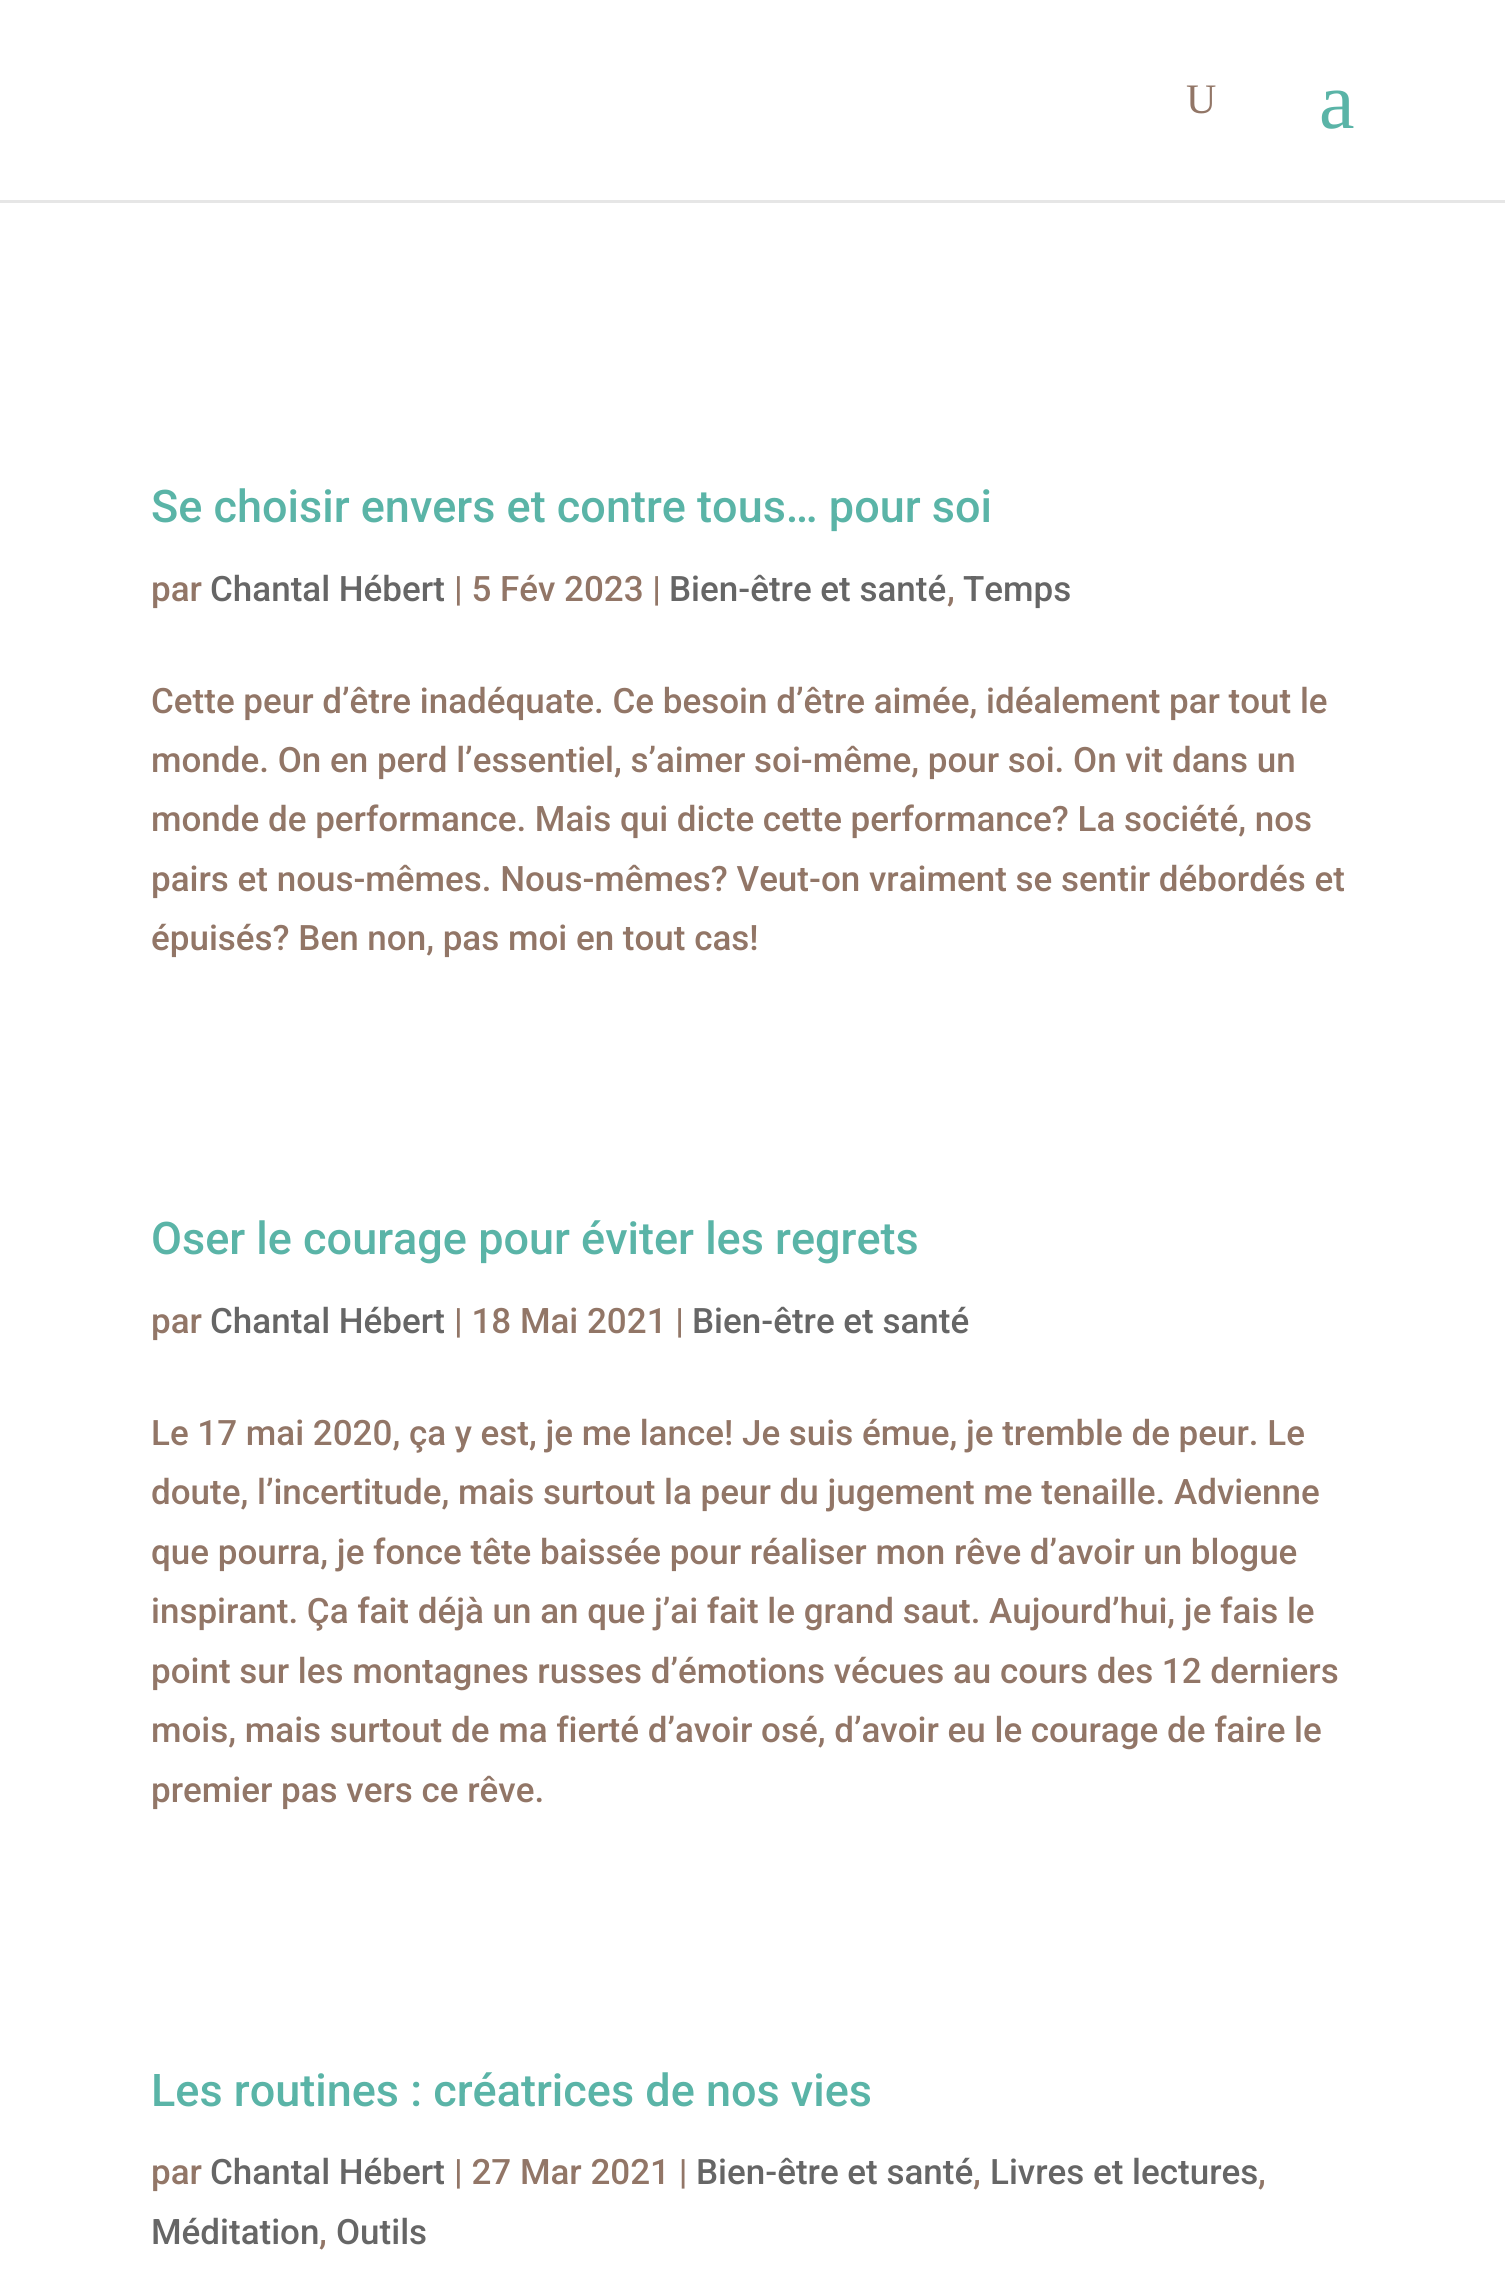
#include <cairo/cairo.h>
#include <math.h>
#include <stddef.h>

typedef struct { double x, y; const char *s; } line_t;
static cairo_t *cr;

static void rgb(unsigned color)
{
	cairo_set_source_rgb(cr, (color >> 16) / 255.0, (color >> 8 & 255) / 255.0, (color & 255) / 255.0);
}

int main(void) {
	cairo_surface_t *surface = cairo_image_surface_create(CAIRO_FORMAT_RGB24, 1505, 2291);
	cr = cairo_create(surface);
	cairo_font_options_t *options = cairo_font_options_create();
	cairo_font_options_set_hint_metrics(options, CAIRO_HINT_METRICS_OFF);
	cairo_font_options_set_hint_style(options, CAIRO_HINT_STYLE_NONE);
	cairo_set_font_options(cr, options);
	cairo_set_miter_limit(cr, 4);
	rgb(0xffffff);
	cairo_paint(cr);
	rgb(0xe6e6e6);
	cairo_rectangle(cr, 0, 200, 1505, 3);
	cairo_fill(cr);
	cairo_select_font_face(cr, "Liberation Serif", CAIRO_FONT_SLANT_NORMAL, CAIRO_FONT_WEIGHT_NORMAL);
	cairo_set_font_size(cr, 42);
	rgb(0x927667);
	cairo_move_to(cr, 1186, 113);
	cairo_show_text(cr, "U");
	cairo_set_font_size(cr, 80);
	rgb(0x5ab4a7);
	cairo_move_to(cr, 1319, 128);
	cairo_show_text(cr, "a");
	cairo_select_font_face(cr, "Roboto Medium", CAIRO_FONT_SLANT_NORMAL, CAIRO_FONT_WEIGHT_NORMAL);
	cairo_set_font_size(cr, 45);
	cairo_move_to(cr, 151, 522);
	cairo_show_text(cr, "Se choisir envers et contre tous… pour soi");
	cairo_set_font_size(cr, 35);
	rgb(0x927667);
	cairo_move_to(cr, 151, 601);
	cairo_show_text(cr, "par");
	rgb(0x666666);
	cairo_move_to(cr, 210, 601);
	cairo_show_text(cr, "Chantal Hébert");
	rgb(0x927667);
	cairo_move_to(cr, 454, 601);
	cairo_show_text(cr, "| 5 Fév 2023 |");
	rgb(0x666666);
	cairo_move_to(cr, 669, 601);
	cairo_show_text(cr, "Bien-être et santé");
	rgb(0x927667);
	cairo_move_to(cr, 947, 601);
	cairo_show_text(cr, ",");
	rgb(0x666666);
	cairo_move_to(cr, 963, 601);
	cairo_show_text(cr, "Temps");
	rgb(0x927667);
	{
		static const line_t items[] = {
			{151, 713, "Cette peur d’être inadéquate. Ce besoin d’être aimée, idéalement par tout le"},
			{151, 772, "monde. On en perd l’essentiel, s’aimer soi-même, pour soi. On vit dans un"},
			{151, 831, "monde de performance. Mais qui dicte cette performance? La société, nos"},
			{151, 891, "pairs et nous-mêmes. Nous-mêmes? Veut-on vraiment se sentir débordés et"},
			{151, 950, "épuisés? Ben non, pas moi en tout cas!"},
		};
		for (size_t i = 0; i < sizeof items / sizeof *items; i++) {
			cairo_move_to(cr, items[i].x, items[i].y);
			cairo_show_text(cr, items[i].s);
		}
	}
	cairo_set_font_size(cr, 45);
	rgb(0x5ab4a7);
	cairo_move_to(cr, 151, 1254);
	cairo_show_text(cr, "Oser le courage pour éviter les regrets");
	cairo_set_font_size(cr, 35);
	rgb(0x927667);
	cairo_move_to(cr, 151, 1333);
	cairo_show_text(cr, "par");
	rgb(0x666666);
	cairo_move_to(cr, 210, 1333);
	cairo_show_text(cr, "Chantal Hébert");
	rgb(0x927667);
	cairo_move_to(cr, 454, 1333);
	cairo_show_text(cr, "| 18 Mai 2021 |");
	rgb(0x666666);
	cairo_move_to(cr, 692, 1333);
	cairo_show_text(cr, "Bien-être et santé");
	rgb(0x927667);
	{
		static const line_t items[] = {
			{151, 1445, "Le 17 mai 2020, ça y est, je me lance! Je suis émue, je tremble de peur. Le"},
			{151, 1504, "doute, l’incertitude, mais surtout la peur du jugement me tenaille. Advienne"},
			{151, 1564, "que pourra, je fonce tête baissée pour réaliser mon rêve d’avoir un blogue"},
			{151, 1623, "inspirant. Ça fait déjà un an que j’ai fait le grand saut. Aujourd’hui, je fais le"},
			{151, 1683, "point sur les montagnes russes d’émotions vécues au cours des 12 derniers"},
			{151, 1742, "mois, mais surtout de ma fierté d’avoir osé, d’avoir eu le courage de faire le"},
			{151, 1802, "premier pas vers ce rêve."},
		};
		for (size_t i = 0; i < sizeof items / sizeof *items; i++) {
			cairo_move_to(cr, items[i].x, items[i].y);
			cairo_show_text(cr, items[i].s);
		}
	}
	cairo_set_font_size(cr, 45);
	rgb(0x5ab4a7);
	cairo_move_to(cr, 151, 2106);
	cairo_show_text(cr, "Les routines : créatrices de nos vies");
	cairo_set_font_size(cr, 35);
	rgb(0x927667);
	cairo_move_to(cr, 151, 2184);
	cairo_show_text(cr, "par");
	rgb(0x666666);
	cairo_move_to(cr, 210, 2184);
	cairo_show_text(cr, "Chantal Hébert");
	rgb(0x927667);
	cairo_move_to(cr, 454, 2184);
	cairo_show_text(cr, "| 27 Mar 2021 |");
	rgb(0x666666);
	cairo_move_to(cr, 696, 2184);
	cairo_show_text(cr, "Bien-être et santé");
	rgb(0x927667);
	cairo_move_to(cr, 973, 2184);
	cairo_show_text(cr, ",");
	rgb(0x666666);
	cairo_move_to(cr, 990, 2184);
	cairo_show_text(cr, "Livres et lectures");
	rgb(0x927667);
	cairo_move_to(cr, 1258, 2184);
	cairo_show_text(cr, ",");
	rgb(0x666666);
	cairo_move_to(cr, 151, 2244);
	cairo_show_text(cr, "Méditation");
	rgb(0x927667);
	cairo_move_to(cr, 319, 2244);
	cairo_show_text(cr, ",");
	rgb(0x666666);
	cairo_move_to(cr, 336, 2244);
	cairo_show_text(cr, "Outils");
	cairo_surface_write_to_png(surface, "page.png");
	cairo_font_options_destroy(options);
	cairo_destroy(cr);
	cairo_surface_destroy(surface);
	return 0;
}
